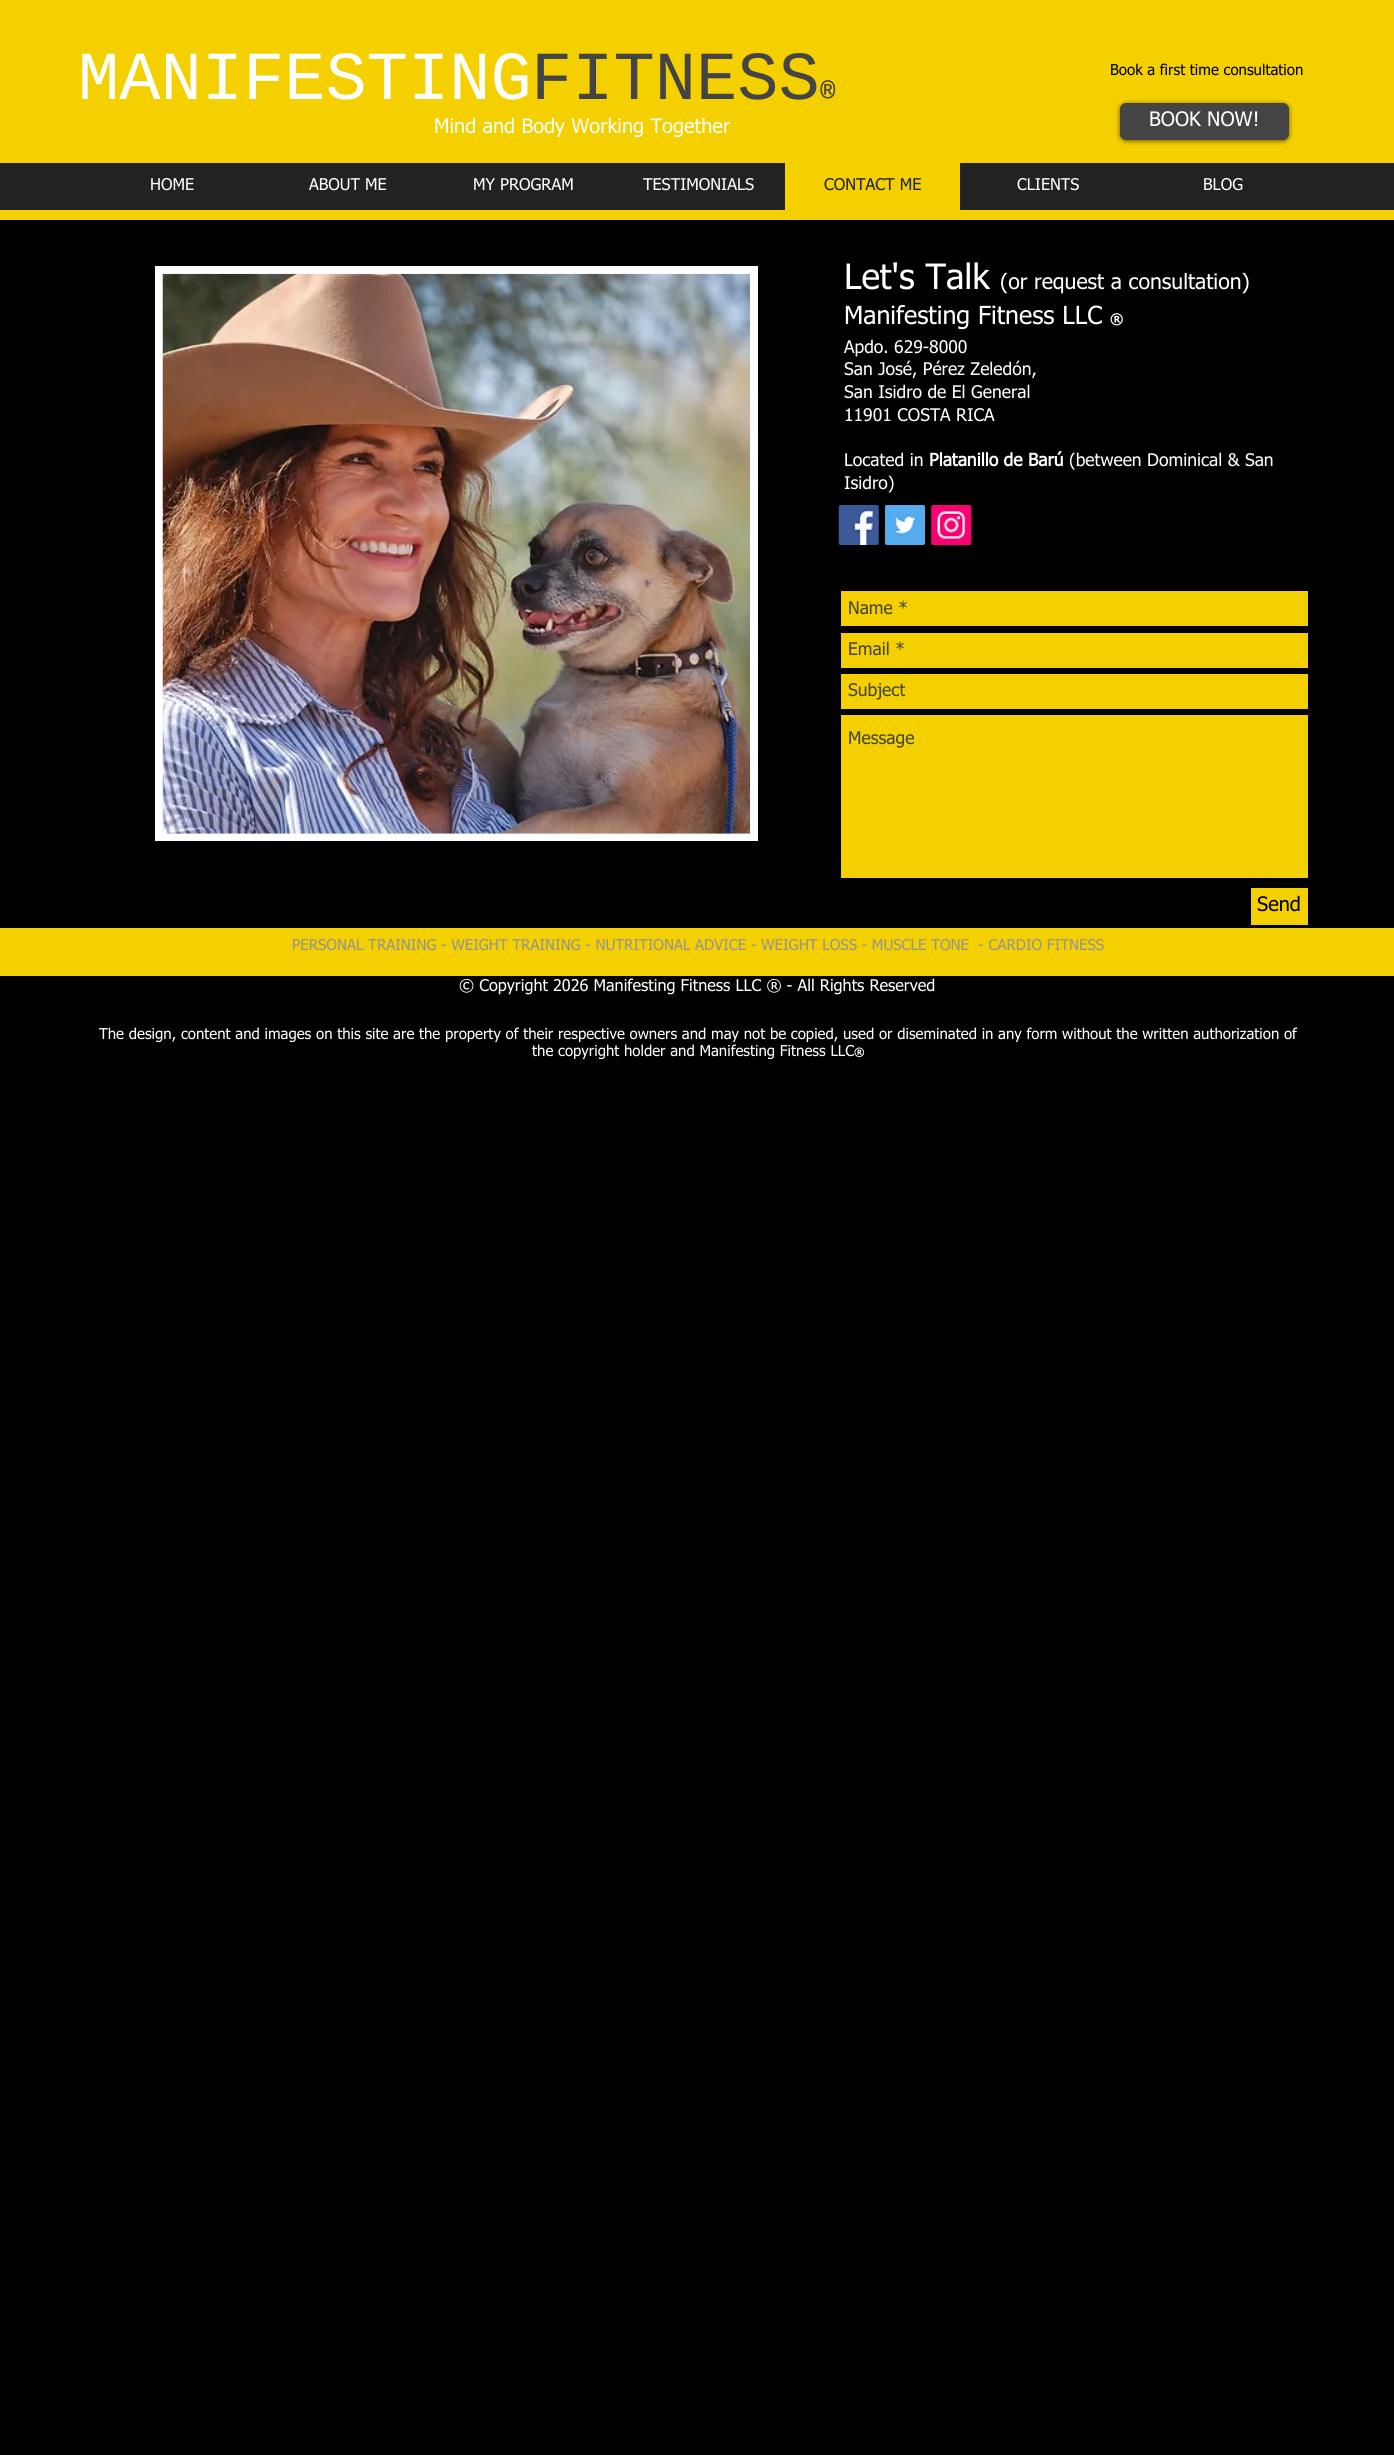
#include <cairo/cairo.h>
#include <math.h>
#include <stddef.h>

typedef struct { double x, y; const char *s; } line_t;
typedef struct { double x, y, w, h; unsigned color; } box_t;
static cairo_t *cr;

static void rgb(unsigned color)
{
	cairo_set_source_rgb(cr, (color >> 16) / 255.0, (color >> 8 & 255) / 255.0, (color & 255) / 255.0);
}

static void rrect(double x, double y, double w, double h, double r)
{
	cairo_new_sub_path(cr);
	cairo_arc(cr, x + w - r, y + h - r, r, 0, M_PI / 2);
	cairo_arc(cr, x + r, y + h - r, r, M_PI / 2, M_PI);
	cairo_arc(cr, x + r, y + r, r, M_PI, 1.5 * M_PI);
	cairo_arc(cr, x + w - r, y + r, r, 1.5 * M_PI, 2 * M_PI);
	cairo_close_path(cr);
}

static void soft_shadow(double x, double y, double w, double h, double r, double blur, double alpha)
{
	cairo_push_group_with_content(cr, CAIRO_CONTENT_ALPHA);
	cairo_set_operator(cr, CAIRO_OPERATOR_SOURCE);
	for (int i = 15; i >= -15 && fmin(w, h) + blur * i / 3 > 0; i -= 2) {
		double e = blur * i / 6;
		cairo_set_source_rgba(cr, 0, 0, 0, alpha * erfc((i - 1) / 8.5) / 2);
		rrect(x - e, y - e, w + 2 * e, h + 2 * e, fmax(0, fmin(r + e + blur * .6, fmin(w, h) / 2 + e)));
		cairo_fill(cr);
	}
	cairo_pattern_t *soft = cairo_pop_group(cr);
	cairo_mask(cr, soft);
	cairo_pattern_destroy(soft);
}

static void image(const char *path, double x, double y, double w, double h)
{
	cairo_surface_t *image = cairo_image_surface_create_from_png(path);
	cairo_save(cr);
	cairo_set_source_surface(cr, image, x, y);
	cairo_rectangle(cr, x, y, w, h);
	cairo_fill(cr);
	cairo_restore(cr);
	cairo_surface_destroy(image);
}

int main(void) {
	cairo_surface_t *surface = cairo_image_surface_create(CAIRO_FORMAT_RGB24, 1394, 2455);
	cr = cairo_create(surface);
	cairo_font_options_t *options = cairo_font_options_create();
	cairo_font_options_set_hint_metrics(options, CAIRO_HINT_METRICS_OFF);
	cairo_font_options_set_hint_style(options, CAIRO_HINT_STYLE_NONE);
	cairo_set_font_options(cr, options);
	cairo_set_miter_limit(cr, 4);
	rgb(0x000000);
	cairo_paint(cr);
	rgb(0xf5d000);
	cairo_rectangle(cr, 0, 0, 1394, 220);
	cairo_fill(cr);
	rgb(0x000000);
	soft_shadow(1120, 104, 169, 37, 6, 2.5, 0.6);
	rgb(0x444444);
	rrect(1120, 103, 169, 37, 6);
	cairo_fill(cr);
	{
		static const box_t items[] = {
			{0, 163, 1394, 47, 0x222222},
			{785, 163, 175, 47, 0xf5d000},
			{155, 266, 603, 575, 0xffffff},
		};
		for (size_t i = 0; i < sizeof items / sizeof *items; i++) {
			rgb(items[i].color);
			cairo_rectangle(cr, items[i].x, items[i].y, items[i].w, items[i].h);
			cairo_fill(cr);
		}
	}
	image("img/1.png", 162, 273, 588, 561);
	image("img/2.png", 838, 505, 41, 40);
	image("img/3.png", 885, 505, 40, 40);
	image("img/4.png", 931, 505, 41, 40);
	{
		static const box_t items[] = {
			{841, 591, 467, 35, 0xf5d000},
			{841, 633, 467, 35, 0xf5d000},
			{841, 674, 467, 35, 0xf5d000},
			{841, 715, 467, 163, 0xf5d000},
			{1251, 888, 57, 37, 0xf5d000},
			{0, 928, 1394, 48, 0xf5d000},
		};
		for (size_t i = 0; i < sizeof items / sizeof *items; i++) {
			rgb(items[i].color);
			cairo_rectangle(cr, items[i].x, items[i].y, items[i].w, items[i].h);
			cairo_fill(cr);
		}
	}
	cairo_select_font_face(cr, "Liberation Mono", CAIRO_FONT_SLANT_NORMAL, CAIRO_FONT_WEIGHT_NORMAL);
	cairo_set_font_size(cr, 68.75);
	rgb(0xffffff);
	cairo_move_to(cr, 78, 99);
	cairo_show_text(cr, "MANIFESTING");
	rgb(0x444444);
	cairo_move_to(cr, 531, 99);
	cairo_show_text(cr, "FITNESS");
	cairo_select_font_face(cr, "Liberation Mono", CAIRO_FONT_SLANT_NORMAL, CAIRO_FONT_WEIGHT_BOLD);
	cairo_set_font_size(cr, 26);
	cairo_move_to(cr, 820, 99);
	cairo_show_text(cr, "®");
	cairo_select_font_face(cr, "tahoma", CAIRO_FONT_SLANT_NORMAL, CAIRO_FONT_WEIGHT_NORMAL);
	cairo_set_font_size(cr, 15);
	rgb(0x000000);
	cairo_move_to(cr, 1110, 75);
	cairo_show_text(cr, "Book a first time consultation");
	cairo_set_font_size(cr, 20);
	rgb(0xffffff);
	cairo_move_to(cr, 434, 133);
	cairo_show_text(cr, "Mind and Body Working Together");
	cairo_move_to(cr, 1149, 126);
	cairo_show_text(cr, "BOOK NOW!");
	cairo_set_font_size(cr, 16.25);
	{
		static const line_t items[] = {
			{150, 190, "HOME"},
			{309, 190, "ABOUT ME"},
			{473, 190, "MY PROGRAM"},
			{643, 190, "TESTIMONIALS"},
		};
		for (size_t i = 0; i < sizeof items / sizeof *items; i++) {
			cairo_move_to(cr, items[i].x, items[i].y);
			cairo_show_text(cr, items[i].s);
		}
	}
	rgb(0x222222);
	cairo_move_to(cr, 824, 190);
	cairo_show_text(cr, "CONTACT ME");
	rgb(0xffffff);
	cairo_move_to(cr, 1017, 190);
	cairo_show_text(cr, "CLIENTS");
	cairo_move_to(cr, 1203, 190);
	cairo_show_text(cr, "BLOG");
	cairo_set_font_size(cr, 35);
	cairo_move_to(cr, 844, 289);
	cairo_show_text(cr, "Let's Talk");
	cairo_set_font_size(cr, 21.25);
	cairo_move_to(cr, 1000, 289);
	cairo_show_text(cr, "(or request a consultation)");
	cairo_set_font_size(cr, 25);
	cairo_move_to(cr, 844, 324);
	cairo_show_text(cr, "Manifesting Fitness LLC");
	cairo_select_font_face(cr, "tahoma", CAIRO_FONT_SLANT_NORMAL, CAIRO_FONT_WEIGHT_BOLD);
	cairo_set_font_size(cr, 14);
	cairo_move_to(cr, 1110, 324);
	cairo_show_text(cr, "®");
	cairo_select_font_face(cr, "tahoma", CAIRO_FONT_SLANT_NORMAL, CAIRO_FONT_WEIGHT_NORMAL);
	cairo_set_font_size(cr, 17.5);
	{
		static const line_t items[] = {
			{844, 353, "Apdo. 629-8000"},
			{844, 375, "San José, Pérez Zeledón,"},
			{844, 398, "San Isidro de El General"},
			{844, 421, "11901 COSTA RICA"},
			{844, 466, "Located in"},
		};
		for (size_t i = 0; i < sizeof items / sizeof *items; i++) {
			cairo_move_to(cr, items[i].x, items[i].y);
			cairo_show_text(cr, items[i].s);
		}
	}
	cairo_select_font_face(cr, "tahoma", CAIRO_FONT_SLANT_NORMAL, CAIRO_FONT_WEIGHT_BOLD);
	cairo_move_to(cr, 929, 466);
	cairo_show_text(cr, "Platanillo de Barú");
	cairo_select_font_face(cr, "tahoma", CAIRO_FONT_SLANT_NORMAL, CAIRO_FONT_WEIGHT_NORMAL);
	cairo_move_to(cr, 1069, 466);
	cairo_show_text(cr, "(between Dominical & San");
	cairo_move_to(cr, 844, 489);
	cairo_show_text(cr, "Isidro)");
	rgb(0x444444);
	{
		static const line_t items[] = {
			{848, 614, "Name *"},
			{848, 655, "Email *"},
			{848, 696, "Subject"},
			{848, 744, "Message"},
		};
		for (size_t i = 0; i < sizeof items / sizeof *items; i++) {
			cairo_move_to(cr, items[i].x, items[i].y);
			cairo_show_text(cr, items[i].s);
		}
	}
	cairo_set_font_size(cr, 20);
	rgb(0x000000);
	cairo_move_to(cr, 1257, 911);
	cairo_show_text(cr, "Send");
	cairo_set_font_size(cr, 15);
	rgb(0x949494);
	cairo_move_to(cr, 292, 950);
	cairo_show_text(cr, "PERSONAL TRAINING - WEIGHT TRAINING - NUTRITIONAL ADVICE - WEIGHT LOSS - MUSCLE TONE  - CARDIO FITNESS");
	cairo_set_font_size(cr, 16.25);
	rgb(0xffffff);
	cairo_move_to(cr, 459, 991);
	cairo_show_text(cr, "© Copyright 2026 Manifesting Fitness LLC ® - All Rights Reserved");
	cairo_set_font_size(cr, 15);
	cairo_move_to(cr, 99, 1039);
	cairo_show_text(cr, "The design, content and images on this site are the property of their respective owners and may not be copied, used or diseminated in any form without the written authorization of");
	cairo_move_to(cr, 532, 1056);
	cairo_show_text(cr, "the copyright holder and Manifesting Fitness LLC");
	cairo_select_font_face(cr, "tahoma", CAIRO_FONT_SLANT_NORMAL, CAIRO_FONT_WEIGHT_BOLD);
	cairo_set_font_size(cr, 11);
	cairo_move_to(cr, 854, 1056);
	cairo_show_text(cr, "®");
	cairo_surface_write_to_png(surface, "page.png");
	cairo_font_options_destroy(options);
	cairo_destroy(cr);
	cairo_surface_destroy(surface);
	return 0;
}
